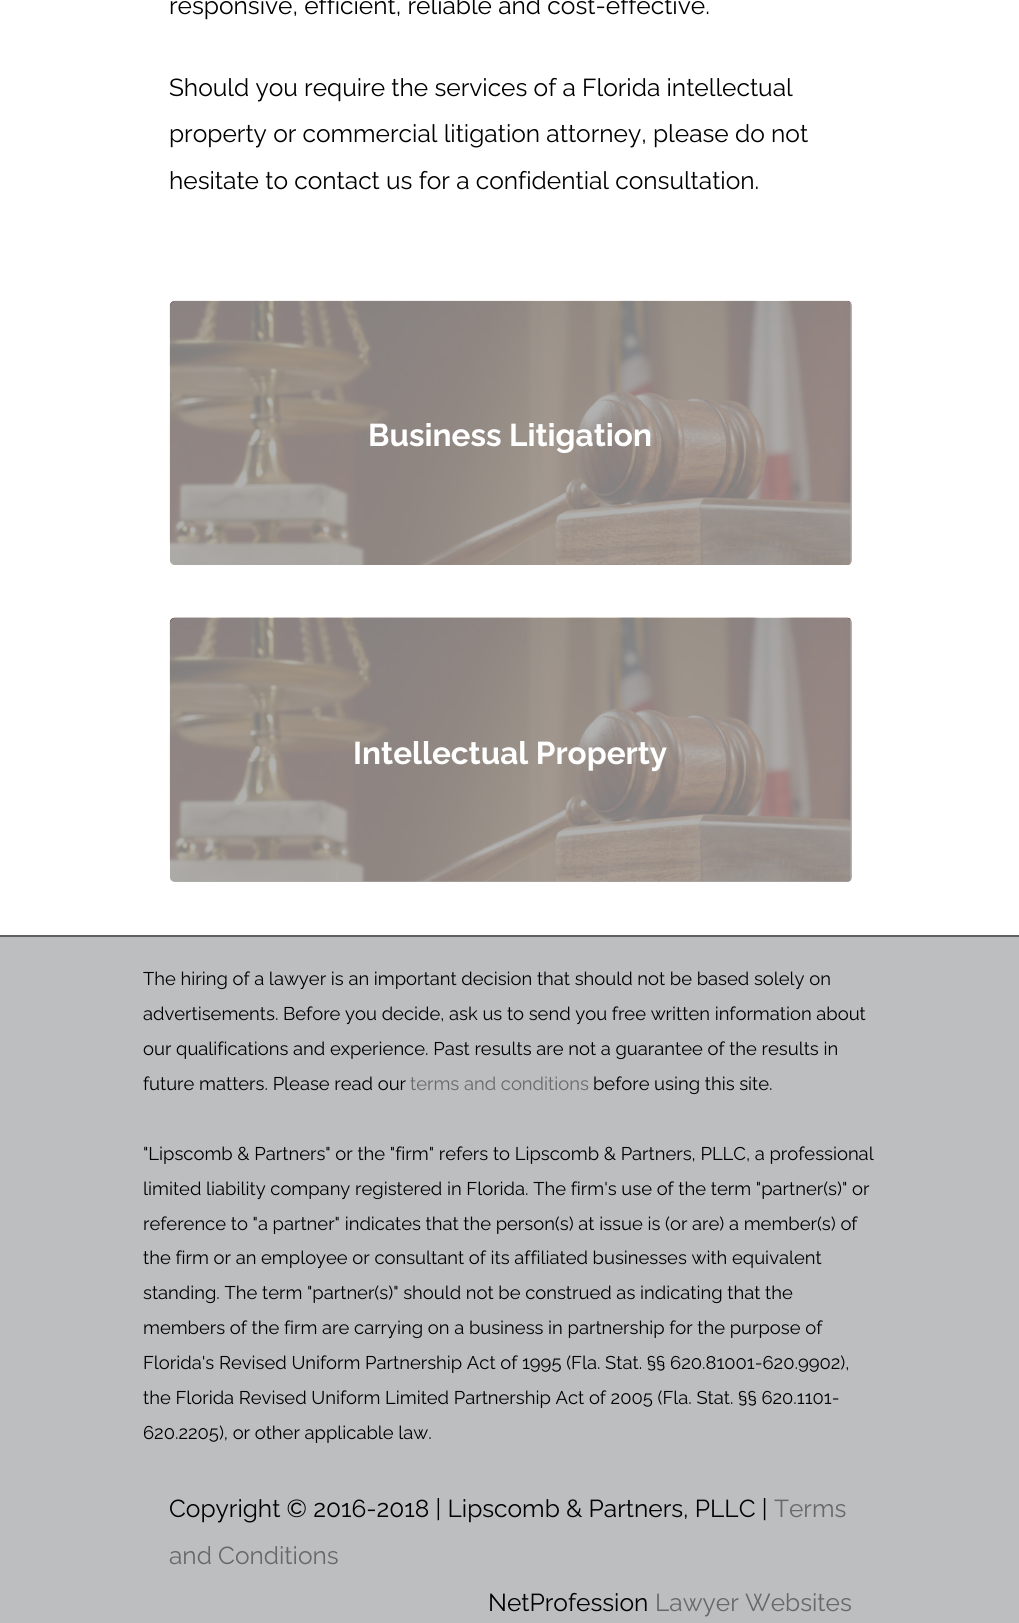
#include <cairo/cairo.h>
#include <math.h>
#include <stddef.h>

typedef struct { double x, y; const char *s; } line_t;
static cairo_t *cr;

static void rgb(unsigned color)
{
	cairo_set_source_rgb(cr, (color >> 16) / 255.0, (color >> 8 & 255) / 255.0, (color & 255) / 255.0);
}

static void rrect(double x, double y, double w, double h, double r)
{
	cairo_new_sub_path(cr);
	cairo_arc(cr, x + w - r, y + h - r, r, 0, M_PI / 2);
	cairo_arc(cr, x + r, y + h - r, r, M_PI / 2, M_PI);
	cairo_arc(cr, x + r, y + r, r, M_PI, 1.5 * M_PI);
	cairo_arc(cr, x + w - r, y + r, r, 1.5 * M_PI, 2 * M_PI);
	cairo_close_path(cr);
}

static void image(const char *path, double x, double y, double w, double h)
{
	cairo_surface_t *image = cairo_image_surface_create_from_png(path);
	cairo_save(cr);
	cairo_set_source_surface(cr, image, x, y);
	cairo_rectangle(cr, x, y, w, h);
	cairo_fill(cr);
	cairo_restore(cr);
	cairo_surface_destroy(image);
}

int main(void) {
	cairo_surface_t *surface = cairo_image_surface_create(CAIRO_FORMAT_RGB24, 1019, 1623);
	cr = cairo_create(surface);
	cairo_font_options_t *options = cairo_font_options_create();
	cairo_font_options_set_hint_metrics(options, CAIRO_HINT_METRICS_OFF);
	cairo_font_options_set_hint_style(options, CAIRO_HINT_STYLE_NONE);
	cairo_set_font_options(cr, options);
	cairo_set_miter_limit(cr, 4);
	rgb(0xffffff);
	cairo_paint(cr);
	image("img/1.png", 169, 300, 682, 265);
	cairo_set_source_rgba(cr, 0.62, 0.62, 0.62, 0.8);
	rrect(170, 301, 682, 264, 5);
	cairo_fill(cr);
	image("img/2.png", 169, 617, 682, 265);
	rrect(170, 618, 682, 264, 5);
	cairo_fill(cr);
	rgb(0xbdbec0);
	cairo_rectangle(cr, 0, 937, 1019, 686);
	cairo_fill(cr);
	rgb(0x606060);
	cairo_rectangle(cr, 0, 935, 1019, 2);
	cairo_fill(cr);
	cairo_select_font_face(cr, "Raleway", CAIRO_FONT_SLANT_NORMAL, CAIRO_FONT_WEIGHT_NORMAL);
	cairo_set_font_size(cr, 24.5);
	rgb(0x000000);
	{
		static const line_t items[] = {
			{169, 14, "responsive, efficient, reliable and cost-effective."},
			{169, 96, "Should you require the services of a Florida intellectual"},
			{169, 142, "property or commercial litigation attorney, please do not"},
			{169, 189, "hesitate to contact us for a confidential consultation."},
		};
		for (size_t i = 0; i < sizeof items / sizeof *items; i++) {
			cairo_move_to(cr, items[i].x, items[i].y);
			cairo_show_text(cr, items[i].s);
		}
	}
	cairo_select_font_face(cr, "Raleway", CAIRO_FONT_SLANT_NORMAL, CAIRO_FONT_WEIGHT_BOLD);
	cairo_set_font_size(cr, 31.5);
	rgb(0xffffff);
	cairo_move_to(cr, 368, 446);
	cairo_show_text(cr, "Business Litigation");
	cairo_move_to(cr, 353, 764);
	cairo_show_text(cr, "Intellectual Property");
	cairo_select_font_face(cr, "Raleway", CAIRO_FONT_SLANT_NORMAL, CAIRO_FONT_WEIGHT_NORMAL);
	cairo_set_font_size(cr, 18.4);
	rgb(0x000000);
	{
		static const line_t items[] = {
			{143, 985, "The hiring of a lawyer is an important decision that should not be based solely on"},
			{143, 1020, "advertisements. Before you decide, ask us to send you free written information about"},
			{143, 1055, "our qualifications and experience. Past results are not a guarantee of the results in"},
			{143, 1090, "future matters. Please read our"},
		};
		for (size_t i = 0; i < sizeof items / sizeof *items; i++) {
			cairo_move_to(cr, items[i].x, items[i].y);
			cairo_show_text(cr, items[i].s);
		}
	}
	rgb(0x686868);
	cairo_move_to(cr, 410, 1090);
	cairo_show_text(cr, "terms and conditions");
	rgb(0x000000);
	{
		static const line_t items[] = {
			{593, 1090, "before using this site."},
			{143, 1160, "\"Lipscomb & Partners\" or the \"firm\" refers to Lipscomb & Partners, PLLC, a professional"},
			{143, 1195, "limited liability company registered in Florida. The firm's use of the term \"partner(s)\" or"},
			{143, 1230, "reference to \"a partner\" indicates that the person(s) at issue is (or are) a member(s) of"},
			{143, 1264, "the firm or an employee or consultant of its affiliated businesses with equivalent"},
			{143, 1299, "standing. The term \"partner(s)\" should not be construed as indicating that the"},
			{143, 1334, "members of the firm are carrying on a business in partnership for the purpose of"},
			{143, 1369, "Florida's Revised Uniform Partnership Act of 1995 (Fla. Stat. §§ 620.81001-620.9902),"},
			{143, 1404, "the Florida Revised Uniform Limited Partnership Act of 2005 (Fla. Stat. §§ 620.1101-"},
			{143, 1439, "620.2205), or other applicable law."},
		};
		for (size_t i = 0; i < sizeof items / sizeof *items; i++) {
			cairo_move_to(cr, items[i].x, items[i].y);
			cairo_show_text(cr, items[i].s);
		}
	}
	cairo_set_font_size(cr, 24.5);
	cairo_move_to(cr, 169, 1517);
	cairo_show_text(cr, "Copyright © 2016-2018 | Lipscomb & Partners, PLLC |");
	rgb(0x686868);
	cairo_move_to(cr, 774, 1517);
	cairo_show_text(cr, "Terms");
	cairo_move_to(cr, 169, 1564);
	cairo_show_text(cr, "and Conditions");
	rgb(0x000000);
	cairo_move_to(cr, 488, 1611);
	cairo_show_text(cr, "NetProfession");
	rgb(0x686868);
	cairo_move_to(cr, 655, 1611);
	cairo_show_text(cr, "Lawyer Websites");
	cairo_surface_write_to_png(surface, "page.png");
	cairo_font_options_destroy(options);
	cairo_destroy(cr);
	cairo_surface_destroy(surface);
	return 0;
}
